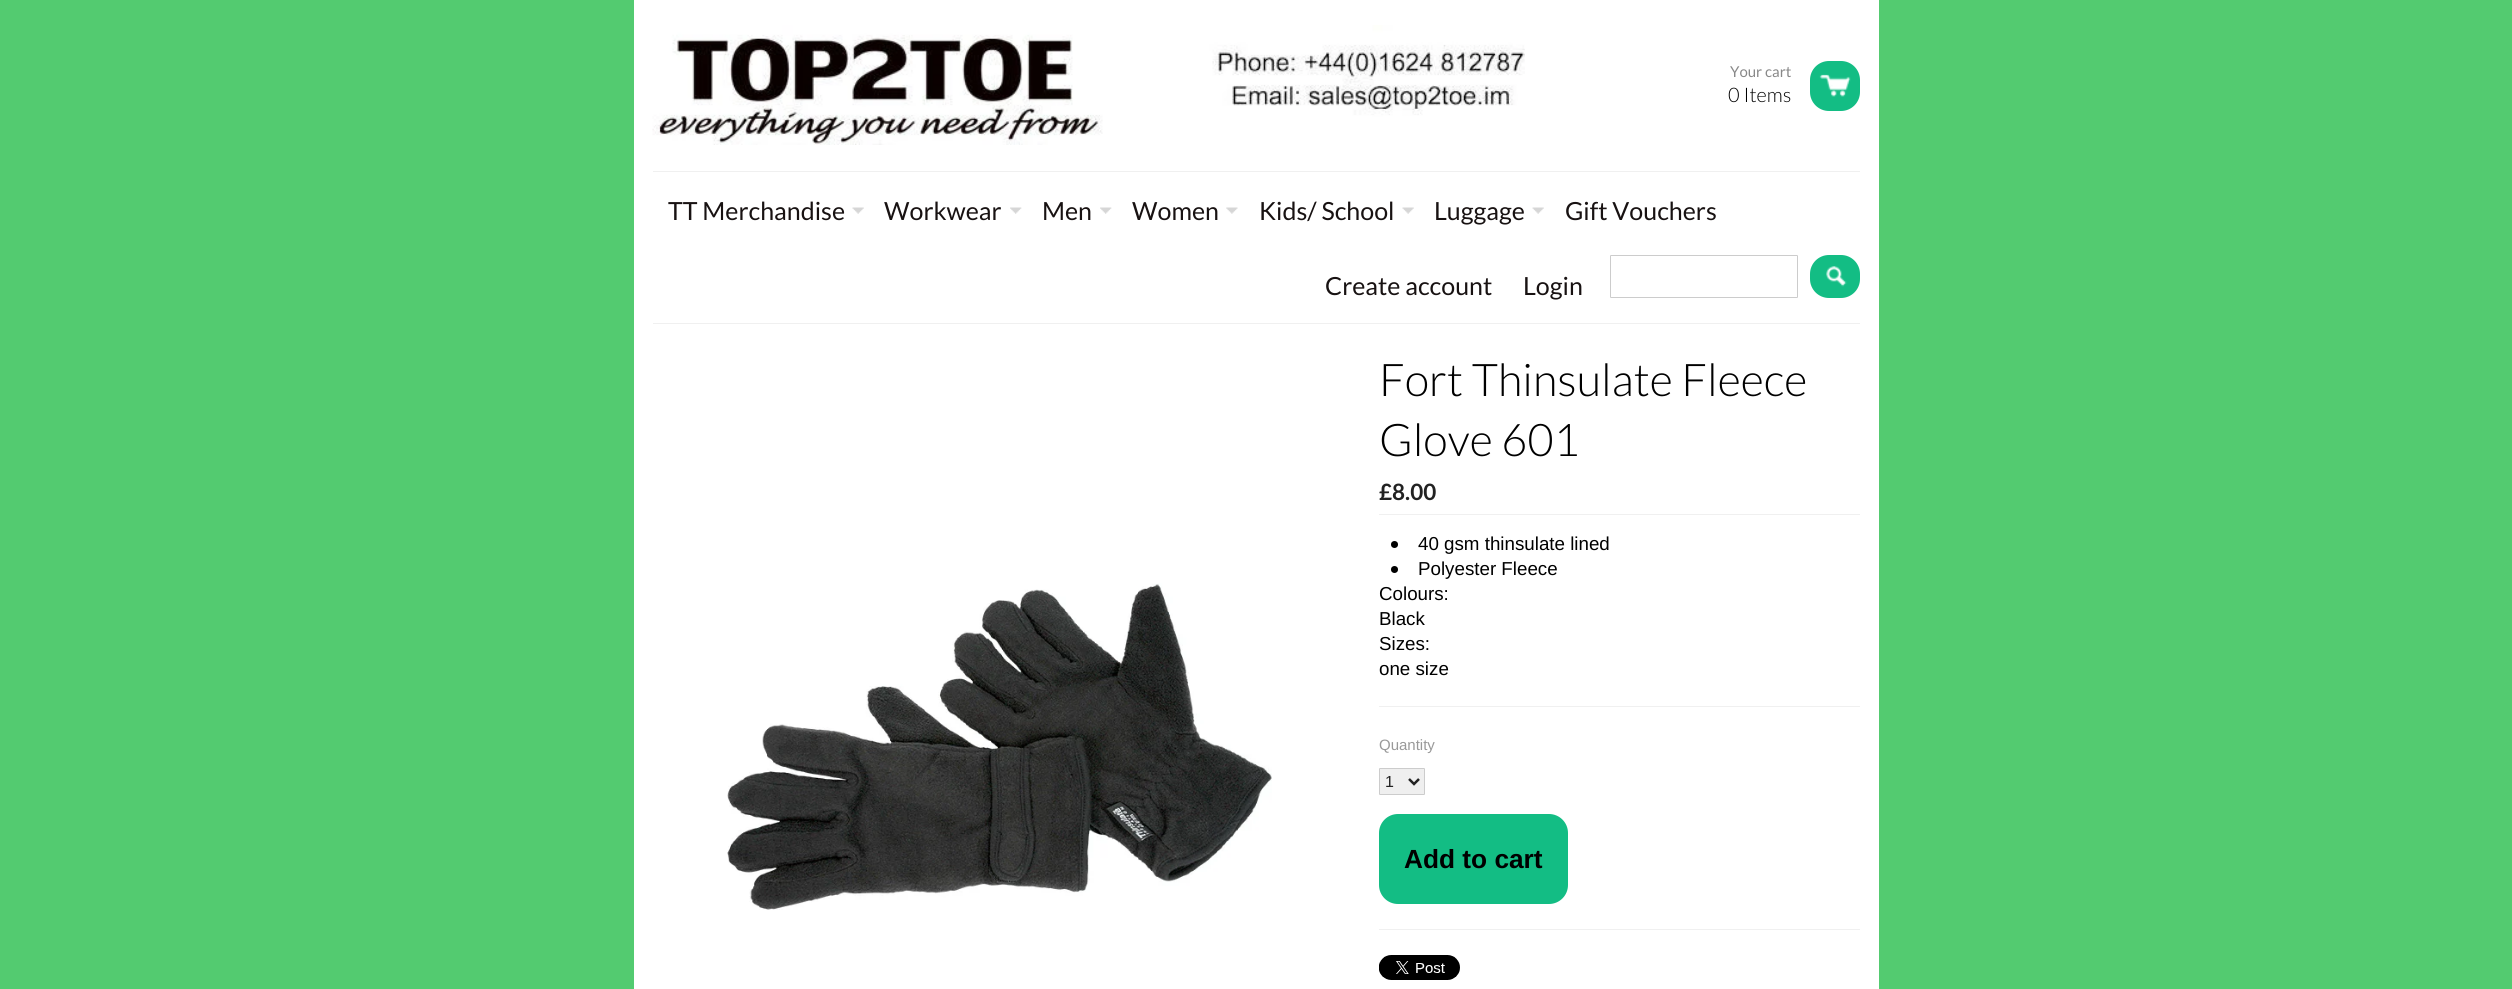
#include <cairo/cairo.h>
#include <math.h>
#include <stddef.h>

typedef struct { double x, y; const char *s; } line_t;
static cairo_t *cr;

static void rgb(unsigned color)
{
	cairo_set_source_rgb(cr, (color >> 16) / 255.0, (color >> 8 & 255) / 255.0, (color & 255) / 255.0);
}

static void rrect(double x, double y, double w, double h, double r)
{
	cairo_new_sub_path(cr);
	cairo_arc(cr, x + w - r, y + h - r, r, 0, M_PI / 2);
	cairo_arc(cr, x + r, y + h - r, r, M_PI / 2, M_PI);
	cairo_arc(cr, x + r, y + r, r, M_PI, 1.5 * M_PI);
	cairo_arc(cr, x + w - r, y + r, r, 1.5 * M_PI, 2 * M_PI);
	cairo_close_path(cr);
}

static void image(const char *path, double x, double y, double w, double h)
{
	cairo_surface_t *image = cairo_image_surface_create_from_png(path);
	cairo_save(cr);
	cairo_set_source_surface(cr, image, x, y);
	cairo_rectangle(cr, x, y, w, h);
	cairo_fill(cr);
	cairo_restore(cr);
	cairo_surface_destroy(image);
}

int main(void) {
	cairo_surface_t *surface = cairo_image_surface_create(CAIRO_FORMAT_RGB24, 2512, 989);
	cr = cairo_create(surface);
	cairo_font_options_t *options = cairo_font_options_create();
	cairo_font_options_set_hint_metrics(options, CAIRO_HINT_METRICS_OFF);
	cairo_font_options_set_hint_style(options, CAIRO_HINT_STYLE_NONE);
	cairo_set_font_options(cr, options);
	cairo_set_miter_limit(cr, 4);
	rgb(0x53cb70);
	cairo_paint(cr);
	rgb(0xffffff);
	cairo_rectangle(cr, 634, 0, 1245, 989);
	cairo_fill(cr);
	image("img/1.png", 652, 25, 873, 120);
	rgb(0x13bd84);
	rrect(1810, 61, 50, 50, 19);
	cairo_fill(cr);
	image("img/2.png", 1819, 74, 32, 23);
	rgb(0xf0f0f0);
	cairo_rectangle(cr, 653, 171, 1207, 1);
	cairo_fill(cr);
	cairo_rectangle(cr, 653, 323, 1207, 1);
	cairo_fill(cr);
	image("img/3.png", 852, 207, 12, 7);
	image("img/4.png", 1010, 207, 12, 7);
	image("img/4.png", 1100, 207, 12, 7);
	image("img/5.png", 1226, 207, 12, 7);
	image("img/3.png", 1402, 207, 12, 7);
	image("img/6.png", 1532, 207, 12, 7);
	rrect(1610.5, 255.5, 187, 42, 0.5);
	rgb(0xcccccc);
	cairo_set_line_width(cr, 1);
	cairo_stroke(cr);
	rgb(0x13bd84);
	rrect(1810, 255, 50, 43, 19);
	cairo_fill(cr);
	image("img/7.png", 1826, 266, 21, 21);
	image("img/8.png", 727, 583, 545, 327);
	rgb(0xf0f0f0);
	cairo_rectangle(cr, 1379, 514, 481, 1);
	cairo_fill(cr);
	cairo_rectangle(cr, 1379, 706, 481, 1);
	cairo_fill(cr);
	rgb(0x000000);
	cairo_arc(cr, 1394.5, 544.5, 3.5, 0, 2 * M_PI);
	cairo_fill(cr);
	cairo_arc(cr, 1394.5, 569.5, 3.5, 0, 2 * M_PI);
	cairo_fill(cr);
	rgb(0xefefef);
	rrect(1379.5, 768.5, 45, 26, 0.5);
	cairo_fill_preserve(cr);
	rgb(0xcccccc);
	cairo_stroke(cr);
	cairo_new_path(cr);
	cairo_move_to(cr, 1409, 779);
	cairo_line_to(cr, 1414, 784);
	cairo_line_to(cr, 1419, 779);
	rgb(0x222222);
	cairo_set_line_width(cr, 2.5);
	cairo_stroke(cr);
	rgb(0x13bd84);
	rrect(1379, 814, 189, 90, 19);
	cairo_fill(cr);
	rgb(0xf0f0f0);
	cairo_rectangle(cr, 1379, 929, 481, 1);
	cairo_fill(cr);
	image("img/9.png", 1379, 955, 81, 25);
	cairo_select_font_face(cr, "Lato", CAIRO_FONT_SLANT_NORMAL, CAIRO_FONT_WEIGHT_NORMAL);
	cairo_set_font_size(cr, 15);
	rgb(0x888888);
	cairo_move_to(cr, 1730, 77);
	cairo_show_text(cr, "Your cart");
	cairo_select_font_face(cr, "Lato Light", CAIRO_FONT_SLANT_NORMAL, CAIRO_FONT_WEIGHT_NORMAL);
	cairo_set_font_size(cr, 20);
	rgb(0x000000);
	cairo_move_to(cr, 1728, 102);
	cairo_show_text(cr, "0 Items");
	cairo_select_font_face(cr, "Lato", CAIRO_FONT_SLANT_NORMAL, CAIRO_FONT_WEIGHT_NORMAL);
	cairo_set_font_size(cr, 25);
	rgb(0x181212);
	{
		static const line_t items[] = {
			{668, 220, "TT Merchandise"},
			{884, 220, "Workwear"},
			{1042, 220, "Men"},
			{1132, 220, "Women"},
			{1259, 220, "Kids/ School"},
			{1434, 220, "Luggage"},
			{1565, 220, "Gift Vouchers"},
			{1325, 295, "Create account"},
			{1523, 295, "Login"},
		};
		for (size_t i = 0; i < sizeof items / sizeof *items; i++) {
			cairo_move_to(cr, items[i].x, items[i].y);
			cairo_show_text(cr, items[i].s);
		}
	}
	cairo_select_font_face(cr, "Lato Light", CAIRO_FONT_SLANT_NORMAL, CAIRO_FONT_WEIGHT_NORMAL);
	cairo_set_font_size(cr, 45);
	rgb(0x000000);
	cairo_move_to(cr, 1379, 396);
	cairo_show_text(cr, "Fort Thinsulate Fleece");
	cairo_move_to(cr, 1379, 456);
	cairo_show_text(cr, "Glove 601");
	cairo_select_font_face(cr, "Lato", CAIRO_FONT_SLANT_NORMAL, CAIRO_FONT_WEIGHT_BOLD);
	cairo_set_font_size(cr, 22.5);
	rgb(0x222222);
	cairo_move_to(cr, 1379, 500);
	cairo_show_text(cr, "£8.00");
	cairo_select_font_face(cr, "Liberation Sans", CAIRO_FONT_SLANT_NORMAL, CAIRO_FONT_WEIGHT_NORMAL);
	cairo_set_font_size(cr, 18.75);
	rgb(0x000000);
	{
		static const line_t items[] = {
			{1418, 550, "40 gsm thinsulate lined"},
			{1418, 575, "Polyester Fleece"},
			{1379, 600, "Colours:"},
			{1379, 625, "Black"},
			{1379, 650, "Sizes:"},
			{1379, 675, "one size"},
		};
		for (size_t i = 0; i < sizeof items / sizeof *items; i++) {
			cairo_move_to(cr, items[i].x, items[i].y);
			cairo_show_text(cr, items[i].s);
		}
	}
	cairo_set_font_size(cr, 15);
	rgb(0x999999);
	cairo_move_to(cr, 1379, 750);
	cairo_show_text(cr, "Quantity");
	cairo_set_font_size(cr, 16);
	rgb(0x222222);
	cairo_move_to(cr, 1385, 787);
	cairo_show_text(cr, "1");
	cairo_select_font_face(cr, "Liberation Sans", CAIRO_FONT_SLANT_NORMAL, CAIRO_FONT_WEIGHT_BOLD);
	cairo_set_font_size(cr, 26.25);
	rgb(0x000000);
	cairo_move_to(cr, 1404, 868);
	cairo_show_text(cr, "Add to cart");
	cairo_surface_write_to_png(surface, "page.png");
	cairo_font_options_destroy(options);
	cairo_destroy(cr);
	cairo_surface_destroy(surface);
	return 0;
}
